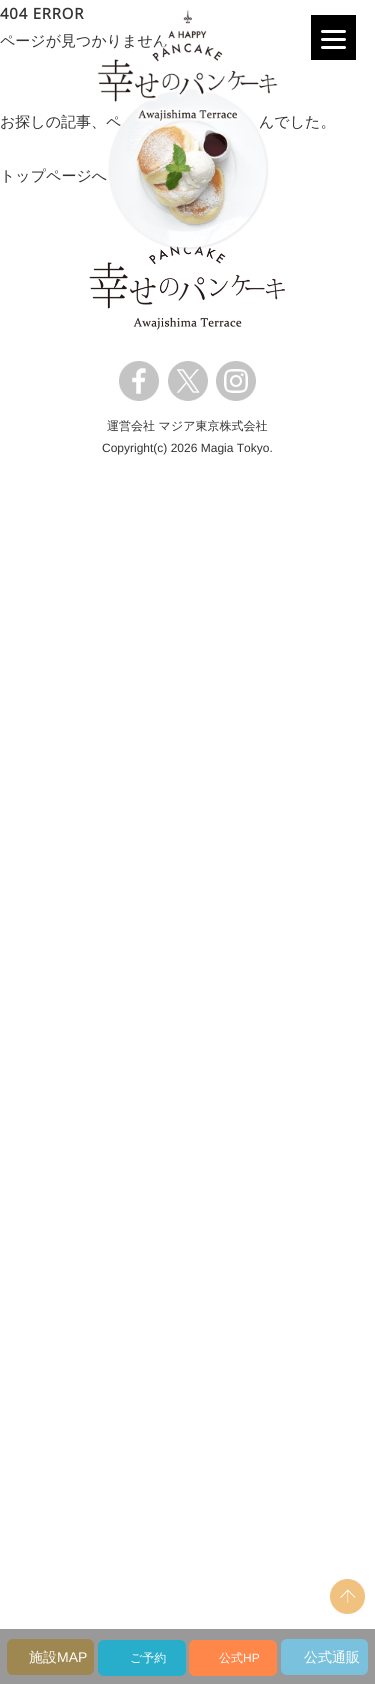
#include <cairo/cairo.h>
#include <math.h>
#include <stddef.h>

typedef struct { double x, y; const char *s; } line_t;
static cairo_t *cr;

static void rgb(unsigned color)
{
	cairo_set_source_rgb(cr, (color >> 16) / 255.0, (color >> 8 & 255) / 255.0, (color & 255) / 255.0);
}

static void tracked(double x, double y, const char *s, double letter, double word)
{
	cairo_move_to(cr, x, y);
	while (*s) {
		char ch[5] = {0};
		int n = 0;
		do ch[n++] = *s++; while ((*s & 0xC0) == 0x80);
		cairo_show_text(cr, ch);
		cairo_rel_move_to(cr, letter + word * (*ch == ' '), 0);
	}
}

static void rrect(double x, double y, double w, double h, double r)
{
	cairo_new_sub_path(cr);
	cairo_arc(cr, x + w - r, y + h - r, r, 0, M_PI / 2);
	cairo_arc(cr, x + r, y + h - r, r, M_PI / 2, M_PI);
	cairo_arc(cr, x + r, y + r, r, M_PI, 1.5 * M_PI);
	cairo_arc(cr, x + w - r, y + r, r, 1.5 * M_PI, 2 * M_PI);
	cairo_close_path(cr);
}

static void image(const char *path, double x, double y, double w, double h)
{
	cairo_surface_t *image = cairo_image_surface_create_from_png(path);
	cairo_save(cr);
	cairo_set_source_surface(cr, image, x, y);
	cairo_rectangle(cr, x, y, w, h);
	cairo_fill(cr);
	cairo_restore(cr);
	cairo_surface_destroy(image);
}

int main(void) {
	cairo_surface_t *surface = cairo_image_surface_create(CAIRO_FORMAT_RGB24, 375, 1684);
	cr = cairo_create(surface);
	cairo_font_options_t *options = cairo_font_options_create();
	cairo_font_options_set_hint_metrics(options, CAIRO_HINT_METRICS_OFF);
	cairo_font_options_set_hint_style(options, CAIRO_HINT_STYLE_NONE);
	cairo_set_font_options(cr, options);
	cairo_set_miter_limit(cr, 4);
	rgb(0xffffff);
	cairo_paint(cr);
	rgb(0x000000);
	cairo_rectangle(cr, 311, 15, 45, 45);
	cairo_fill(cr);
	rgb(0xffffff);
	rrect(321, 38, 25, 3, 1.5);
	cairo_fill(cr);
	rrect(321, 30, 25, 3, 1.5);
	cairo_fill(cr);
	rrect(321, 46, 25, 3, 1.5);
	cairo_fill(cr);
	image("img/1.png", 89, 246, 196, 84);
	image("img/2.png", 119, 361, 40, 40);
	image("img/3.png", 168, 361, 40, 40);
	image("img/4.png", 216, 361, 40, 40);
	rgb(0x999999);
	cairo_rectangle(cr, 0, 1629, 375, 55);
	cairo_fill(cr);
	rgb(0x9e8750);
	rrect(7, 1639, 87, 36, 6);
	cairo_fill(cr);
	rgb(0x28adcb);
	rrect(98, 1640, 88, 36, 6);
	cairo_fill(cr);
	rgb(0xff874a);
	rrect(189, 1640, 88, 36, 6);
	cairo_fill(cr);
	rgb(0x7ac1dd);
	rrect(281, 1639, 87, 36, 6);
	cairo_fill(cr);
	image("img/6.png", 330, 1579, 35, 35);
	cairo_select_font_face(cr, "Open Sans", CAIRO_FONT_SLANT_NORMAL, CAIRO_FONT_WEIGHT_BOLD);
	cairo_set_font_size(cr, 15);
	rgb(0x333333);
	tracked(0, 19, "404 ERROR", 0.75, 0);
	cairo_select_font_face(cr, "WenQuanYi Zen Hei Medium", CAIRO_FONT_SLANT_NORMAL, CAIRO_FONT_WEIGHT_NORMAL);
	{
		static const line_t items[] = {
			{0, 46, "ページが見つかりません"},
			{0, 127, "お探しの記事、ペ"},
			{259, 127, "んでした。"},
			{0, 181, "トップページへ"},
		};
		for (size_t i = 0; i < sizeof items / sizeof *items; i++) {
			cairo_move_to(cr, items[i].x, items[i].y);
			cairo_show_text(cr, items[i].s);
		}
	}
	cairo_set_font_size(cr, 12);
	cairo_move_to(cr, 107, 430);
	cairo_show_text(cr, "運営会社 マジア東京株式会社");
	cairo_select_font_face(cr, "Liberation Sans", CAIRO_FONT_SLANT_NORMAL, CAIRO_FONT_WEIGHT_NORMAL);
	cairo_move_to(cr, 102, 452);
	cairo_show_text(cr, "Copyright(c) 2026 Magia Tokyo.");
	cairo_select_font_face(cr, "WenQuanYi Zen Hei Medium", CAIRO_FONT_SLANT_NORMAL, CAIRO_FONT_WEIGHT_NORMAL);
	cairo_set_font_size(cr, 14);
	rgb(0xffffff);
	cairo_move_to(cr, 29, 1662);
	cairo_show_text(cr, "施設");
	cairo_select_font_face(cr, "Liberation Sans", CAIRO_FONT_SLANT_NORMAL, CAIRO_FONT_WEIGHT_NORMAL);
	cairo_move_to(cr, 57, 1662);
	cairo_show_text(cr, "MAP");
	cairo_select_font_face(cr, "WenQuanYi Zen Hei Medium", CAIRO_FONT_SLANT_NORMAL, CAIRO_FONT_WEIGHT_NORMAL);
	cairo_set_font_size(cr, 12);
	cairo_move_to(cr, 130, 1662);
	cairo_show_text(cr, "ご予約");
	cairo_move_to(cr, 219, 1662);
	cairo_show_text(cr, "公式");
	cairo_select_font_face(cr, "Liberation Sans", CAIRO_FONT_SLANT_NORMAL, CAIRO_FONT_WEIGHT_NORMAL);
	cairo_move_to(cr, 243, 1662);
	cairo_show_text(cr, "HP");
	cairo_select_font_face(cr, "WenQuanYi Zen Hei Medium", CAIRO_FONT_SLANT_NORMAL, CAIRO_FONT_WEIGHT_NORMAL);
	cairo_set_font_size(cr, 14);
	cairo_move_to(cr, 304, 1662);
	cairo_show_text(cr, "公式通販");
	image("img/5.png", 97, 10, 181, 241);
	cairo_surface_write_to_png(surface, "page.png");
	cairo_font_options_destroy(options);
	cairo_destroy(cr);
	cairo_surface_destroy(surface);
	return 0;
}
